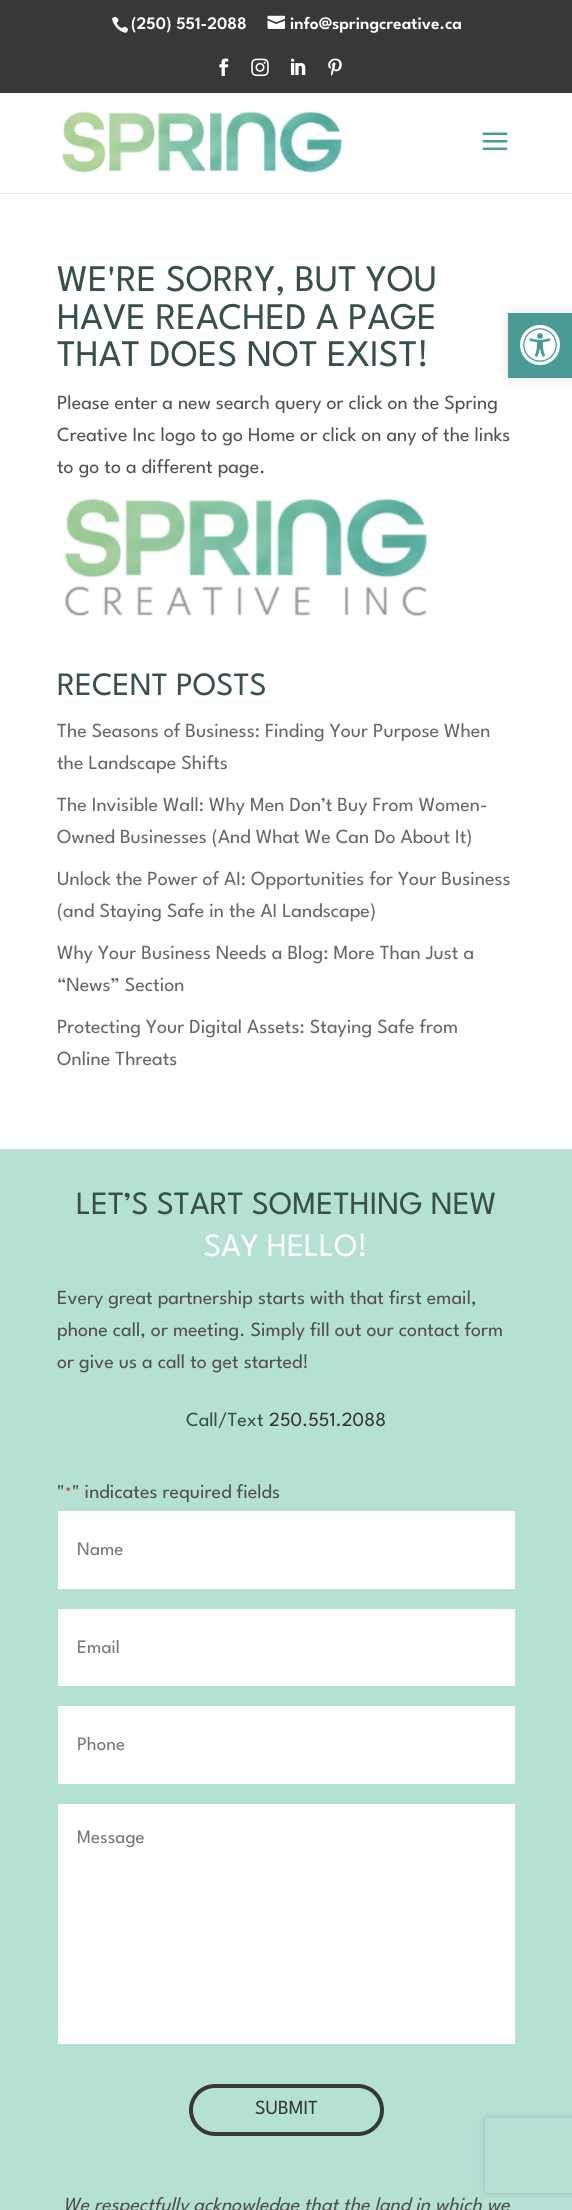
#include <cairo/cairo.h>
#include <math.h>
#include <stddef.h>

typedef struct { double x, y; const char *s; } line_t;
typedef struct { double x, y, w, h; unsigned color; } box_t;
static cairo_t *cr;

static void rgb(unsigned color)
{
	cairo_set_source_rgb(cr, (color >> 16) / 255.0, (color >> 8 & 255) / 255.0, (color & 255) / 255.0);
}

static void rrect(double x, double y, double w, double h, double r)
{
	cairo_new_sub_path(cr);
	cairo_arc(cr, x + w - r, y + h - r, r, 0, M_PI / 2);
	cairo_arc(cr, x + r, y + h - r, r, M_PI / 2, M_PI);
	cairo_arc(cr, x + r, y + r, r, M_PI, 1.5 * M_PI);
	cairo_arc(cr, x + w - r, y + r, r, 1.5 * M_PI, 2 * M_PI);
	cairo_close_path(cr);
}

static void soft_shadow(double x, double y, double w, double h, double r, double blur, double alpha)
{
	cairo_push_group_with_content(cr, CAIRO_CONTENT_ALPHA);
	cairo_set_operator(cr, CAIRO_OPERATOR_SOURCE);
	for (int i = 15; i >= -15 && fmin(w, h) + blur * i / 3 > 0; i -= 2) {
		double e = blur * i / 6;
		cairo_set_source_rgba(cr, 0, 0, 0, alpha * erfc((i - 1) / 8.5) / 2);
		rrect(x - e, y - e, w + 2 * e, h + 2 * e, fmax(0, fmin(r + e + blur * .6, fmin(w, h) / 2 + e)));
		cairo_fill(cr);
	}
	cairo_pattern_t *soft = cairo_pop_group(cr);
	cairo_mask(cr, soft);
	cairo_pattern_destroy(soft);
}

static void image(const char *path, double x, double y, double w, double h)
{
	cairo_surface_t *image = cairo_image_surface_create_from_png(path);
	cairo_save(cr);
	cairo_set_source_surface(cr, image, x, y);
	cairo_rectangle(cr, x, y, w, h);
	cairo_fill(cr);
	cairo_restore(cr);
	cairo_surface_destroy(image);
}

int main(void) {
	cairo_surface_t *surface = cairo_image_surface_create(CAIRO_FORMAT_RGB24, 572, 2210);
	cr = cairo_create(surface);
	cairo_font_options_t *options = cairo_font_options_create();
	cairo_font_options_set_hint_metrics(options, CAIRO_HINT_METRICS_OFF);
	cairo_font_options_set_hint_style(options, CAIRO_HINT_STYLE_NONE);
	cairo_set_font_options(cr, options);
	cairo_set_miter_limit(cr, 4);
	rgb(0xffffff);
	cairo_paint(cr);
	rgb(0xb5e0d4);
	cairo_rectangle(cr, 0, 1149, 572, 1061);
	cairo_fill(cr);
	rgb(0x383838);
	cairo_rectangle(cr, 0, 0, 572, 93);
	cairo_fill(cr);
	image("img/1.png", 112, 16, 16, 17);
	image("img/2.png", 267, 15, 18, 14);
	image("img/3.png", 219, 58, 10, 19);
	image("img/4.png", 251, 58, 18, 19);
	image("img/5.png", 290, 58, 16, 17);
	image("img/6.png", 328, 58, 14, 18);
	rgb(0xe6e6e6);
	cairo_new_path(cr);
	cairo_move_to(cr, 0, 192);
	cairo_line_to(cr, 0, 194);
	cairo_line_to(cr, 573, 194);
	cairo_line_to(cr, 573, 94);
	cairo_line_to(cr, 572, 94);
	cairo_line_to(cr, 572, 192);
	cairo_close_path(cr);
	cairo_fill(cr);
	rgb(0xffffff);
	cairo_rectangle(cr, 0, 192, 572, 1);
	cairo_fill(cr);
	image("img/7.png", 62, 111, 280, 62);
	image("img/8.png", 482, 132, 26, 18);
	image("img/9.png", 65, 498, 363, 119);
	{
		static const box_t items[] = {
			{58, 1511, 457, 78, 0xffffff},
			{58, 1609, 457, 77, 0xffffff},
			{58, 1706, 457, 78, 0xffffff},
			{58, 1804, 457, 240, 0xffffff},
		};
		for (size_t i = 0; i < sizeof items / sizeof *items; i++) {
			rgb(items[i].color);
			cairo_rectangle(cr, items[i].x, items[i].y, items[i].w, items[i].h);
			cairo_fill(cr);
		}
	}
	rrect(191, 2086, 191, 48, 24);
	rgb(0x383838);
	cairo_set_line_width(cr, 4);
	cairo_stroke(cr);
	rgb(0x000000);
	soft_shadow(508, 313, 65, 65, 0, 6, 0.1);
	rgb(0x4a9b95);
	cairo_rectangle(cr, 508, 313, 64, 65);
	cairo_fill(cr);
	image("img/10.png", 520, 325, 40, 40);
	cairo_save(cr);
	cairo_set_fill_rule(cr, CAIRO_FILL_RULE_EVEN_ODD);
	cairo_new_path(cr);
	cairo_move_to(cr, 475, 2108);
	cairo_line_to(cr, 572, 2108);
	cairo_line_to(cr, 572, 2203);
	cairo_line_to(cr, 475, 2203);
	cairo_close_path(cr);
	cairo_move_to(cr, 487.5, 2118);
	cairo_line_to(cr, 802.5, 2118);
	cairo_curve_to(cr, 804, 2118, 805, 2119, 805, 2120.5);
	cairo_line_to(cr, 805, 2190.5);
	cairo_curve_to(cr, 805, 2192, 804, 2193, 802.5, 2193);
	cairo_line_to(cr, 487.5, 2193);
	cairo_curve_to(cr, 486, 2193, 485, 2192, 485, 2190.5);
	cairo_line_to(cr, 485, 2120.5);
	cairo_curve_to(cr, 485, 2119, 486, 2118, 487.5, 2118);
	cairo_close_path(cr);
	cairo_clip(cr);
	rgb(0x95c0b5);
	soft_shadow(485, 2118, 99, 75, 2.5, 3, 1);
	cairo_restore(cr);
	cairo_select_font_face(cr, "League Spartan SemiBold", CAIRO_FONT_SLANT_NORMAL, CAIRO_FONT_WEIGHT_NORMAL);
	cairo_set_font_size(cr, 17.5);
	rgb(0xffffff);
	cairo_move_to(cr, 131, 29);
	cairo_show_text(cr, "(250) 551-2088");
	cairo_move_to(cr, 290, 29);
	cairo_show_text(cr, "info@springcreative.ca");
	cairo_select_font_face(cr, "League Spartan", CAIRO_FONT_SLANT_NORMAL, CAIRO_FONT_WEIGHT_NORMAL);
	cairo_set_font_size(cr, 37.5);
	rgb(0x375148);
	{
		static const line_t items[] = {
			{57, 291, "WE'RE SORRY, BUT YOU"},
			{57, 329, "HAVE REACHED A PAGE"},
			{57, 366, "THAT DOES NOT EXIST!"},
		};
		for (size_t i = 0; i < sizeof items / sizeof *items; i++) {
			cairo_move_to(cr, items[i].x, items[i].y);
			cairo_show_text(cr, items[i].s);
		}
	}
	cairo_set_font_size(cr, 20);
	rgb(0x515151);
	{
		static const line_t items[] = {
			{57, 409, "Please enter a new search query or click on the Spring"},
			{57, 441, "Creative Inc logo to go Home or click on any of the links"},
			{57, 473, "to go to a different page."},
		};
		for (size_t i = 0; i < sizeof items / sizeof *items; i++) {
			cairo_move_to(cr, items[i].x, items[i].y);
			cairo_show_text(cr, items[i].s);
		}
	}
	cairo_set_font_size(cr, 32.5);
	rgb(0x375148);
	cairo_move_to(cr, 57, 695);
	cairo_show_text(cr, "RECENT POSTS");
	cairo_set_font_size(cr, 20);
	rgb(0x666666);
	{
		static const line_t items[] = {
			{57, 737, "The Seasons of Business: Finding Your Purpose When"},
			{57, 769, "the Landscape Shifts"},
			{57, 811, "The Invisible Wall: Why Men Don’t Buy From Women-"},
			{57, 843, "Owned Businesses (And What We Can Do About It)"},
			{57, 885, "Unlock the Power of AI: Opportunities for Your Business"},
			{57, 917, "(and Staying Safe in the AI Landscape)"},
			{57, 959, "Why Your Business Needs a Blog: More Than Just a"},
			{57, 991, "“News” Section"},
			{57, 1033, "Protecting Your Digital Assets: Staying Safe from"},
			{57, 1065, "Online Threats"},
		};
		for (size_t i = 0; i < sizeof items / sizeof *items; i++) {
			cairo_move_to(cr, items[i].x, items[i].y);
			cairo_show_text(cr, items[i].s);
		}
	}
	cairo_set_font_size(cr, 32.5);
	rgb(0x375148);
	cairo_move_to(cr, 76, 1214);
	cairo_show_text(cr, "LET’S START SOMETHING NEW");
	rgb(0xffffff);
	cairo_move_to(cr, 204, 1256);
	cairo_show_text(cr, "SAY HELLO!");
	cairo_set_font_size(cr, 20);
	rgb(0x515151);
	{
		static const line_t items[] = {
			{57, 1304, "Every great partnership starts with that first email,"},
			{57, 1336, "phone call, or meeting. Simply fill out our contact form"},
			{57, 1368, "or give us a call to get started!"},
		};
		for (size_t i = 0; i < sizeof items / sizeof *items; i++) {
			cairo_move_to(cr, items[i].x, items[i].y);
			cairo_show_text(cr, items[i].s);
		}
	}
	rgb(0x375148);
	cairo_move_to(cr, 186, 1426);
	cairo_show_text(cr, "Call/Text");
	rgb(0x383838);
	cairo_move_to(cr, 269, 1426);
	cairo_show_text(cr, "250.551.2088");
	rgb(0x515151);
	cairo_move_to(cr, 57, 1498);
	cairo_show_text(cr, "\"");
	cairo_set_font_size(cr, 16);
	rgb(0xc02b0a);
	cairo_move_to(cr, 65, 1498);
	cairo_show_text(cr, "*");
	cairo_set_font_size(cr, 20);
	rgb(0x515151);
	cairo_move_to(cr, 72, 1498);
	cairo_show_text(cr, "\" indicates required fields");
	cairo_set_font_size(cr, 19);
	rgb(0x757575);
	{
		static const line_t items[] = {
			{77, 1555, "Name"},
			{77, 1653, "Email"},
			{77, 1750, "Phone"},
			{77, 1843, "Message"},
		};
		for (size_t i = 0; i < sizeof items / sizeof *items; i++) {
			cairo_move_to(cr, items[i].x, items[i].y);
			cairo_show_text(cr, items[i].s);
		}
	}
	cairo_set_font_size(cr, 20);
	rgb(0x383838);
	cairo_move_to(cr, 255, 2114);
	cairo_show_text(cr, "SUBMIT");
	cairo_select_font_face(cr, "League Spartan", CAIRO_FONT_SLANT_ITALIC, CAIRO_FONT_WEIGHT_NORMAL);
	rgb(0x515151);
	cairo_move_to(cr, 63, 2211);
	cairo_show_text(cr, "We respectfully acknowledge that the land in which we");
	cairo_surface_write_to_png(surface, "page.png");
	cairo_font_options_destroy(options);
	cairo_destroy(cr);
	cairo_surface_destroy(surface);
	return 0;
}
